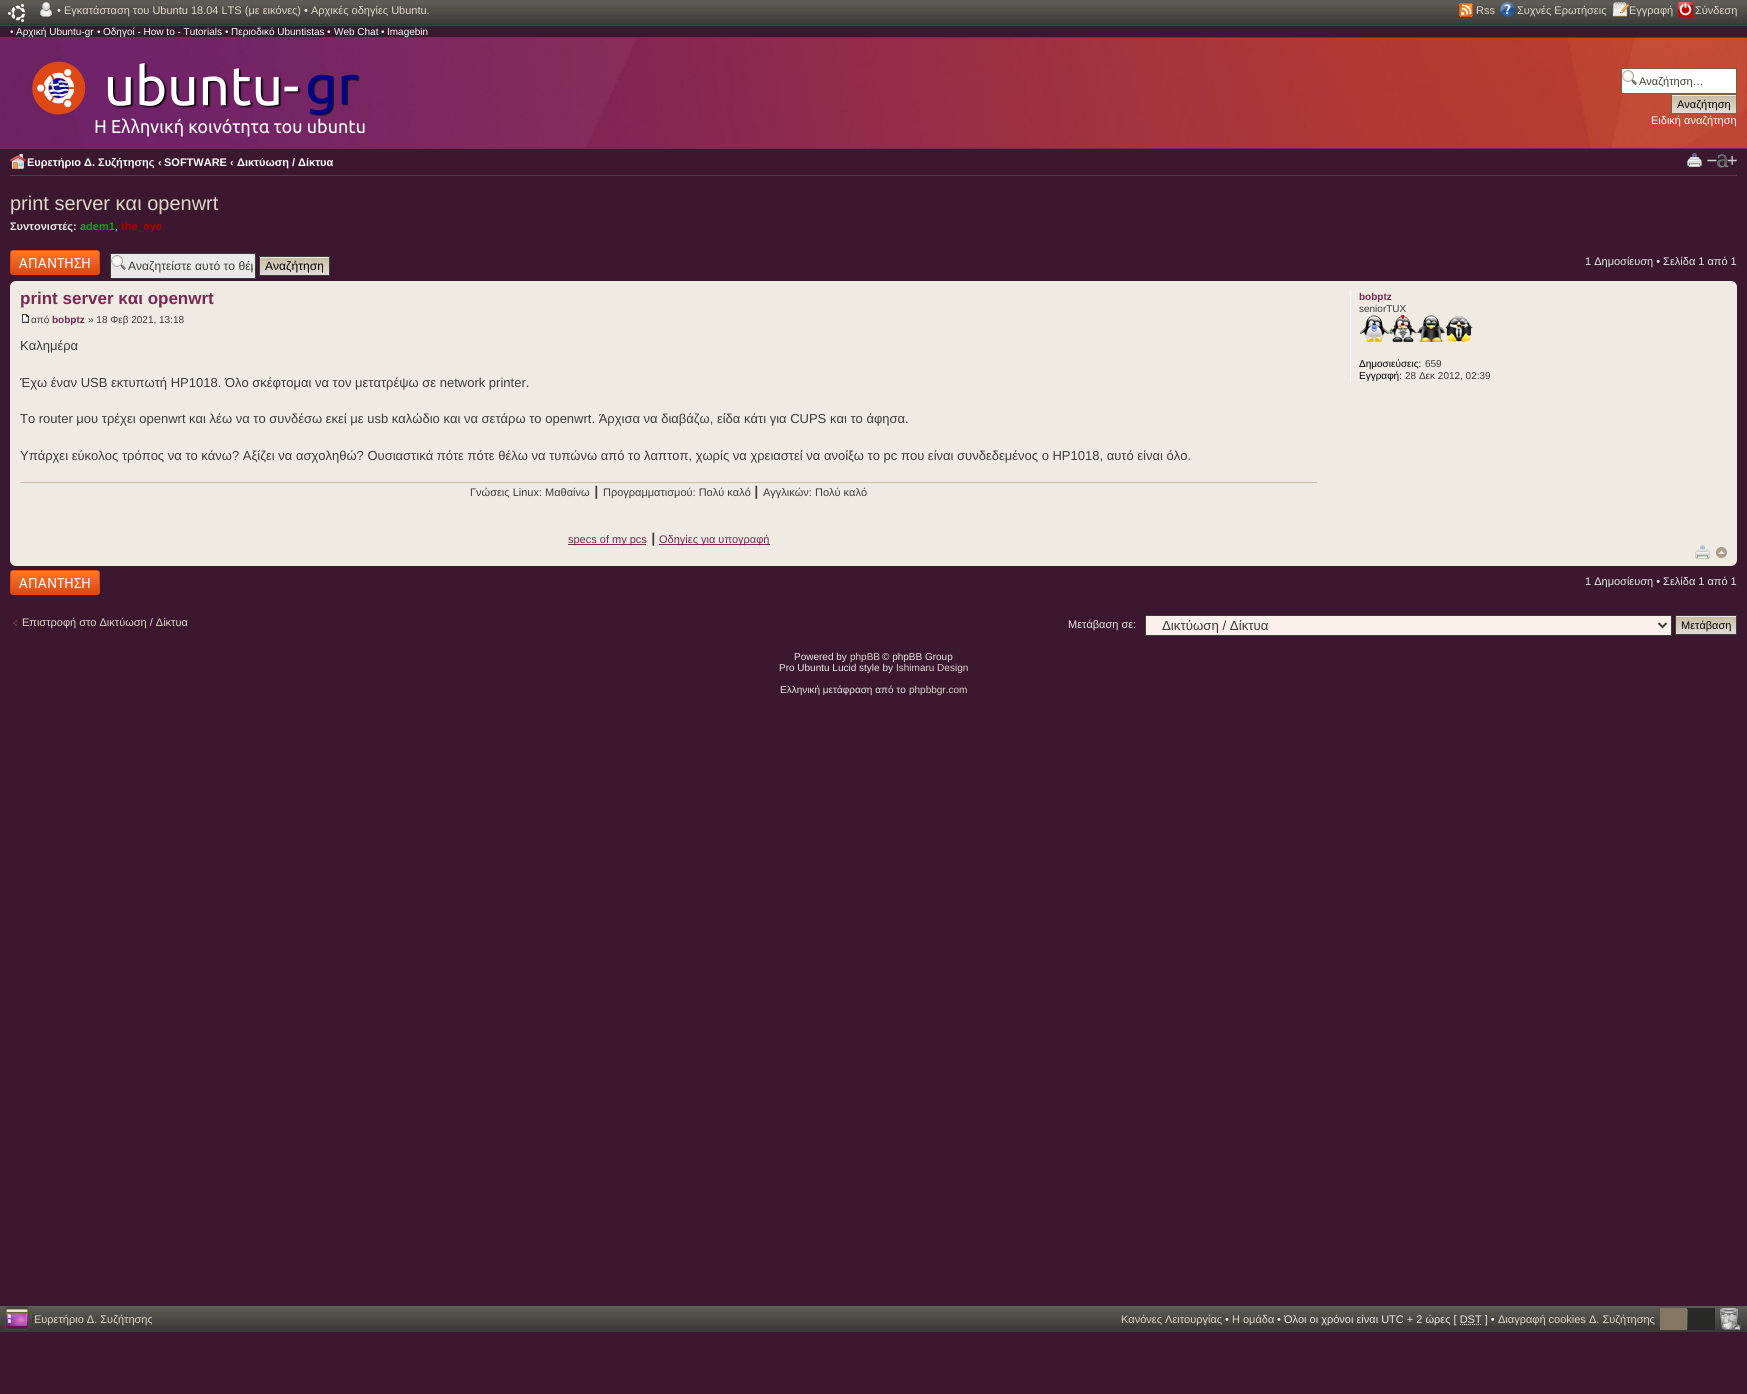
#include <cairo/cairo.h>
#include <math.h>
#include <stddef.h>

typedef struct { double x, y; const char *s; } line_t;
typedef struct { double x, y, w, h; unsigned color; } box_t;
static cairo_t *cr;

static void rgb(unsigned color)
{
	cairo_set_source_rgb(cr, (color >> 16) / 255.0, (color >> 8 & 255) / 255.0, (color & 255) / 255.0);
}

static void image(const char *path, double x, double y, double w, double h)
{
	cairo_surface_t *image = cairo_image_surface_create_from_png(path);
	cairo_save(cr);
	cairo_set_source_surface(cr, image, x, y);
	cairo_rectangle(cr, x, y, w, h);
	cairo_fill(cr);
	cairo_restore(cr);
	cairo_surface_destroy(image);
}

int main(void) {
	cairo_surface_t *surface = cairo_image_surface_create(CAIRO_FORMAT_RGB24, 1747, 1394);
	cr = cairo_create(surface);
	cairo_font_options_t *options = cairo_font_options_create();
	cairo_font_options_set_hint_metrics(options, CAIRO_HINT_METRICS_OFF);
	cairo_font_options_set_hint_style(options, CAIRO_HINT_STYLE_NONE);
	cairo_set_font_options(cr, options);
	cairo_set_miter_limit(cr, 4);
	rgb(0x3b1830);
	cairo_paint(cr);
	rgb(0x5c5b56);
	cairo_rectangle(cr, 0, 0, 1747, 5);
	cairo_fill(cr);
	image("img/1.png", 0, 5, 1747, 20);
	image("img/2.png", 8, 4, 18, 18);
	image("img/3.png", 40, 2, 12, 15);
	image("img/4.png", 1459, 3, 14, 14);
	image("img/5.png", 1500, 2, 15, 15);
	image("img/6.png", 1612, 2, 18, 15);
	image("img/7.png", 1678, 2, 15, 15);
	rgb(0x772953);
	cairo_rectangle(cr, 0, 25, 1747, 1);
	cairo_fill(cr);
	cairo_rectangle(cr, 0, 37, 1747, 1);
	cairo_fill(cr);
	image("img/8.png", 0, 38, 1747, 110);
	image("img/9.png", 32, 61, 333, 76);
	rgb(0xffffff);
	cairo_rectangle(cr, 1622, 69, 114, 24);
	cairo_fill(cr);
	image("img/10.png", 1622, 70, 15, 15);
	cairo_rectangle(cr, 1621.5, 68.5, 115, 25);
	rgb(0x7a6143);
	cairo_set_line_width(cr, 1);
	cairo_stroke(cr);
	rgb(0xe9e9e9);
	cairo_rectangle(cr, 1672, 95, 64, 1);
	cairo_fill(cr);
	image("img/11.png", 1672, 96, 64, 17);
	cairo_rectangle(cr, 1671.5, 94.5, 65, 19);
	rgb(0x7a6143);
	cairo_stroke(cr);
	rgb(0x772953);
	cairo_rectangle(cr, 0, 148, 1747, 1);
	cairo_fill(cr);
	cairo_rectangle(cr, 10, 175, 1727, 1);
	cairo_fill(cr);
	image("img/12.png", 10, 154, 16, 15);
	image("img/13.png", 1687, 153, 15, 14);
	image("img/14.png", 1707, 154, 30, 14);
	image("img/15.png", 10, 250, 90, 25);
	rgb(0xe9e9e9);
	cairo_rectangle(cr, 111, 254, 144, 24);
	cairo_fill(cr);
	image("img/16.png", 111, 255, 15, 15);
	cairo_rectangle(cr, 110.5, 253.5, 145, 25);
	rgb(0x3c3b37);
	cairo_stroke(cr);
	rgb(0xe9e9e9);
	cairo_rectangle(cr, 260, 257, 69, 1);
	cairo_fill(cr);
	image("img/17.png", 260, 258, 69, 17);
	cairo_rectangle(cr, 259.5, 256.5, 70, 19);
	rgb(0x3c3b37);
	cairo_stroke(cr);
	rgb(0xf0ebe2);
	cairo_rectangle(cr, 10, 281, 1727, 285);
	cairo_fill(cr);
	image("img/18.png", 10, 281, 6, 5);
	image("img/19.png", 1731, 281, 6, 5);
	image("img/20.png", 22, 314, 7, 9);
	{
		static const box_t items[] = {
			{20, 482, 1297, 1, 0xcabda6},
			{568, 544, 78, 1, 0x772953},
			{659, 544, 111, 1, 0x772953},
			{1350, 291, 1, 91, 0xffffff},
		};
		for (size_t i = 0; i < sizeof items / sizeof *items; i++) {
			rgb(items[i].color);
			cairo_rectangle(cr, items[i].x, items[i].y, items[i].w, items[i].h);
			cairo_fill(cr);
		}
	}
	image("img/21.png", 1360, 315, 113, 27);
	image("img/22.png", 1695, 545, 15, 14);
	image("img/23.png", 1716, 547, 11, 11);
	image("img/24.png", 10, 561, 5, 5);
	image("img/25.png", 1732, 561, 5, 5);
	image("img/15.png", 10, 570, 90, 25);
	image("img/26.png", 13, 620, 4, 6);
	rgb(0xfaf2ea);
	cairo_rectangle(cr, 1145.5, 615.5, 526, 20);
	cairo_fill_preserve(cr);
	rgb(0x3c3b37);
	cairo_stroke(cr);
	cairo_new_path(cr);
	cairo_move_to(cr, 1658.5, 623);
	cairo_line_to(cr, 1662.5, 627);
	cairo_line_to(cr, 1666.5, 623);
	cairo_set_line_width(cr, 2);
	cairo_stroke(cr);
	rgb(0xe9e9e9);
	cairo_rectangle(cr, 1676, 616, 60, 1);
	cairo_fill(cr);
	image("img/27.png", 1676, 617, 60, 17);
	cairo_rectangle(cr, 1675.5, 615.5, 61, 19);
	rgb(0x3c3b37);
	cairo_set_line_width(cr, 1);
	cairo_stroke(cr);
	cairo_rectangle(cr, 0, 1326, 1747, 6);
	cairo_fill(cr);
	image("img/28.png", 0, 1306, 1747, 20);
	image("img/29.png", 1658, 1308, 84, 22);
	image("img/30.png", 5, 1306, 31, 24);
	cairo_new_path(cr);
	cairo_move_to(cr, 1460, 1324.5);
	cairo_line_to(cr, 1482, 1324.5);
	rgb(0xe9e9e9);
	cairo_set_dash(cr, (double[]){1, 1}, 2, 0);
	cairo_stroke(cr);
	cairo_select_font_face(cr, "Liberation Sans", CAIRO_FONT_SLANT_NORMAL, CAIRO_FONT_WEIGHT_NORMAL);
	cairo_set_font_size(cr, 11);
	cairo_move_to(cr, 57, 14);
	cairo_show_text(cr, "•");
	rgb(0xdfd8c8);
	cairo_move_to(cr, 64, 14);
	cairo_show_text(cr, "Εγκατάσταση του Ubuntu 18.04 LTS (με εικόνες)");
	rgb(0xe9e9e9);
	cairo_move_to(cr, 304, 14);
	cairo_show_text(cr, "•");
	rgb(0xdfd8c8);
	{
		static const line_t items[] = {
			{311, 14, "Αρχικές οδηγίες Ubuntu."},
			{1476, 14, "Rss"},
			{1517, 14, "Συχνές Ερωτήσεις"},
			{1629, 14, "Εγγραφή"},
			{1695, 14, "Σύνδεση"},
		};
		for (size_t i = 0; i < sizeof items / sizeof *items; i++) {
			cairo_move_to(cr, items[i].x, items[i].y);
			cairo_show_text(cr, items[i].s);
		}
	}
	cairo_set_font_size(cr, 10);
	rgb(0xe9e9e9);
	cairo_move_to(cr, 10, 35);
	cairo_show_text(cr, "•");
	rgb(0xffffff);
	cairo_move_to(cr, 16, 35);
	cairo_show_text(cr, "Αρχική Ubuntu-gr");
	rgb(0xe9e9e9);
	cairo_move_to(cr, 97, 35);
	cairo_show_text(cr, "•");
	rgb(0xffffff);
	cairo_move_to(cr, 103, 35);
	cairo_show_text(cr, "Οδηγοί - How to - Tutorials");
	rgb(0xe9e9e9);
	cairo_move_to(cr, 225, 35);
	cairo_show_text(cr, "•");
	rgb(0xffffff);
	cairo_move_to(cr, 231, 35);
	cairo_show_text(cr, "Περιοδικό Ubuntistas");
	rgb(0xe9e9e9);
	cairo_move_to(cr, 327, 35);
	cairo_show_text(cr, "•");
	rgb(0xffffff);
	cairo_move_to(cr, 334, 35);
	cairo_show_text(cr, "Web Chat");
	rgb(0xe9e9e9);
	cairo_move_to(cr, 381, 35);
	cairo_show_text(cr, "•");
	rgb(0xffffff);
	cairo_move_to(cr, 387, 35);
	cairo_show_text(cr, "Imagebin");
	cairo_save(cr);
	cairo_rectangle(cr, 1639, 75, 95, 12);
	cairo_clip(cr);
	cairo_set_font_size(cr, 11);
	rgb(0x3c3b37);
	cairo_move_to(cr, 1639, 85);
	cairo_show_text(cr, "Αναζήτηση…");
	cairo_restore(cr);
	cairo_set_font_size(cr, 11);
	rgb(0x000000);
	cairo_move_to(cr, 1677, 108);
	cairo_show_text(cr, "Αναζήτηση");
	rgb(0xffffff);
	cairo_move_to(cr, 1651, 124);
	cairo_show_text(cr, "Ειδική αναζήτηση");
	cairo_select_font_face(cr, "Liberation Sans", CAIRO_FONT_SLANT_NORMAL, CAIRO_FONT_WEIGHT_BOLD);
	cairo_move_to(cr, 27, 166);
	cairo_show_text(cr, "Ευρετήριο Δ. Συζήτησης");
	rgb(0xe9e9e9);
	cairo_move_to(cr, 158, 166);
	cairo_show_text(cr, "‹");
	rgb(0xffffff);
	cairo_move_to(cr, 164, 166);
	cairo_show_text(cr, "SOFTWARE");
	rgb(0xe9e9e9);
	cairo_move_to(cr, 230, 166);
	cairo_show_text(cr, "‹");
	rgb(0xffffff);
	cairo_move_to(cr, 237, 166);
	cairo_show_text(cr, "Δικτύωση / Δίκτυα");
	cairo_select_font_face(cr, "Liberation Sans", CAIRO_FONT_SLANT_NORMAL, CAIRO_FONT_WEIGHT_NORMAL);
	cairo_set_font_size(cr, 20);
	rgb(0xdfd8c8);
	cairo_move_to(cr, 10, 210);
	cairo_show_text(cr, "print server και openwrt");
	cairo_select_font_face(cr, "Liberation Sans", CAIRO_FONT_SLANT_NORMAL, CAIRO_FONT_WEIGHT_BOLD);
	cairo_set_font_size(cr, 11);
	rgb(0xe9e9e9);
	cairo_move_to(cr, 10, 230);
	cairo_show_text(cr, "Συντονιστές:");
	rgb(0x00aa00);
	cairo_move_to(cr, 80, 230);
	cairo_show_text(cr, "adem1");
	cairo_select_font_face(cr, "Liberation Sans", CAIRO_FONT_SLANT_NORMAL, CAIRO_FONT_WEIGHT_NORMAL);
	rgb(0xe9e9e9);
	cairo_move_to(cr, 115, 230);
	cairo_show_text(cr, ",");
	cairo_select_font_face(cr, "Liberation Sans", CAIRO_FONT_SLANT_NORMAL, CAIRO_FONT_WEIGHT_BOLD);
	rgb(0xaa0000);
	cairo_move_to(cr, 121, 230);
	cairo_show_text(cr, "the_eye");
	cairo_save(cr);
	cairo_rectangle(cr, 128, 259, 125, 14);
	cairo_clip(cr);
	cairo_select_font_face(cr, "Liberation Sans", CAIRO_FONT_SLANT_NORMAL, CAIRO_FONT_WEIGHT_NORMAL);
	cairo_set_font_size(cr, 12.1);
	rgb(0x3c3b37);
	cairo_move_to(cr, 128, 270);
	cairo_show_text(cr, "Αναζητείστε αυτό το θέμ");
	cairo_restore(cr);
	cairo_select_font_face(cr, "Liberation Sans", CAIRO_FONT_SLANT_NORMAL, CAIRO_FONT_WEIGHT_NORMAL);
	cairo_set_font_size(cr, 12.1);
	rgb(0x000000);
	cairo_move_to(cr, 265, 270);
	cairo_show_text(cr, "Αναζήτηση");
	cairo_set_font_size(cr, 11);
	rgb(0xe9e9e9);
	cairo_move_to(cr, 1585, 265);
	cairo_show_text(cr, "1 Δημοσίευση • Σελίδα 1 από 1");
	cairo_select_font_face(cr, "Liberation Sans", CAIRO_FONT_SLANT_NORMAL, CAIRO_FONT_WEIGHT_BOLD);
	cairo_set_font_size(cr, 17);
	rgb(0x772953);
	cairo_move_to(cr, 20, 304);
	cairo_show_text(cr, "print server και openwrt");
	cairo_select_font_face(cr, "Liberation Sans", CAIRO_FONT_SLANT_NORMAL, CAIRO_FONT_WEIGHT_NORMAL);
	cairo_set_font_size(cr, 10);
	rgb(0x3c3b37);
	cairo_move_to(cr, 31, 323);
	cairo_show_text(cr, "από");
	cairo_select_font_face(cr, "Liberation Sans", CAIRO_FONT_SLANT_NORMAL, CAIRO_FONT_WEIGHT_BOLD);
	rgb(0x772953);
	cairo_move_to(cr, 52, 323);
	cairo_show_text(cr, "bobptz");
	cairo_select_font_face(cr, "Liberation Sans", CAIRO_FONT_SLANT_NORMAL, CAIRO_FONT_WEIGHT_NORMAL);
	rgb(0x3c3b37);
	cairo_move_to(cr, 88, 323);
	cairo_show_text(cr, "» 18 Φεβ 2021, 13:18");
	cairo_set_font_size(cr, 13);
	{
		static const line_t items[] = {
			{20, 350, "Καλημέρα"},
			{20, 387, "Έχω έναν USB εκτυπωτή HP1018. Όλο σκέφτομαι να τον μετατρέψω σε network printer."},
			{20, 423, "Το router μου τρέχει openwrt και λέω να το συνδέσω εκεί με usb καλώδιο και να σετάρω το openwrt. Άρχισα να διαβάζω, είδα κάτι για CUPS και το άφησα."},
			{20, 460, "Υπάρχει εύκολος τρόπος να το κάνω? Αξίζει να ασχοληθώ? Ουσιαστικά πότε πότε θέλω να τυπώνω από το λαπτοπ, χωρίς να χρειαστεί να ανοίξω το pc που είναι συνδεδεμένος ο HP1018, αυτό είναι όλο."},
		};
		for (size_t i = 0; i < sizeof items / sizeof *items; i++) {
			cairo_move_to(cr, items[i].x, items[i].y);
			cairo_show_text(cr, items[i].s);
		}
	}
	cairo_set_font_size(cr, 11);
	cairo_move_to(cr, 470, 496);
	cairo_show_text(cr, "Γνώσεις Linux: Μαθαίνω");
	cairo_select_font_face(cr, "DejaVu Sans", CAIRO_FONT_SLANT_NORMAL, CAIRO_FONT_WEIGHT_NORMAL);
	cairo_move_to(cr, 593, 496);
	cairo_show_text(cr, "┃");
	cairo_select_font_face(cr, "Liberation Sans", CAIRO_FONT_SLANT_NORMAL, CAIRO_FONT_WEIGHT_NORMAL);
	cairo_move_to(cr, 603, 496);
	cairo_show_text(cr, "Προγραμματισμού: Πολύ καλό");
	cairo_select_font_face(cr, "DejaVu Sans", CAIRO_FONT_SLANT_NORMAL, CAIRO_FONT_WEIGHT_NORMAL);
	cairo_move_to(cr, 753, 496);
	cairo_show_text(cr, "┃");
	cairo_select_font_face(cr, "Liberation Sans", CAIRO_FONT_SLANT_NORMAL, CAIRO_FONT_WEIGHT_NORMAL);
	cairo_move_to(cr, 763, 496);
	cairo_show_text(cr, "Αγγλικών: Πολύ καλό");
	rgb(0x772953);
	cairo_move_to(cr, 568, 543);
	cairo_show_text(cr, "specs of my pcs");
	cairo_select_font_face(cr, "DejaVu Sans", CAIRO_FONT_SLANT_NORMAL, CAIRO_FONT_WEIGHT_NORMAL);
	rgb(0x3c3b37);
	cairo_move_to(cr, 650, 543);
	cairo_show_text(cr, "┃");
	cairo_select_font_face(cr, "Liberation Sans", CAIRO_FONT_SLANT_NORMAL, CAIRO_FONT_WEIGHT_NORMAL);
	rgb(0x772953);
	cairo_move_to(cr, 659, 543);
	cairo_show_text(cr, "Οδηγίες για υπογραφή");
	cairo_select_font_face(cr, "Liberation Sans", CAIRO_FONT_SLANT_NORMAL, CAIRO_FONT_WEIGHT_BOLD);
	cairo_set_font_size(cr, 10);
	cairo_move_to(cr, 1359, 300);
	cairo_show_text(cr, "bobptz");
	cairo_select_font_face(cr, "Liberation Sans", CAIRO_FONT_SLANT_NORMAL, CAIRO_FONT_WEIGHT_NORMAL);
	rgb(0x3c3b37);
	cairo_move_to(cr, 1359, 312);
	cairo_show_text(cr, "seniorTUX");
	rgb(0x000000);
	cairo_move_to(cr, 1359, 367);
	cairo_show_text(cr, "Δημοσιεύσεις:");
	rgb(0x3c3b37);
	cairo_move_to(cr, 1425, 367);
	cairo_show_text(cr, "659");
	rgb(0x000000);
	cairo_move_to(cr, 1359, 379);
	cairo_show_text(cr, "Εγγραφή:");
	rgb(0x3c3b37);
	cairo_move_to(cr, 1405, 379);
	cairo_show_text(cr, "28 Δεκ 2012, 02:39");
	cairo_set_font_size(cr, 11);
	rgb(0xe9e9e9);
	cairo_move_to(cr, 1585, 585);
	cairo_show_text(cr, "1 Δημοσίευση • Σελίδα 1 από 1");
	rgb(0xdfd8c8);
	cairo_move_to(cr, 22, 626);
	cairo_show_text(cr, "Επιστροφή στο Δικτύωση / Δίκτυα");
	rgb(0xe9e9e9);
	cairo_move_to(cr, 1068, 628);
	cairo_show_text(cr, "Μετάβαση σε:");
	cairo_set_font_size(cr, 13.25);
	rgb(0x3c3b37);
	cairo_move_to(cr, 1162, 630);
	cairo_show_text(cr, "Δικτύωση / Δίκτυα");
	cairo_set_font_size(cr, 11);
	rgb(0x000000);
	cairo_move_to(cr, 1681, 629);
	cairo_show_text(cr, "Μετάβαση");
	cairo_set_font_size(cr, 10);
	rgb(0xe9e9e9);
	cairo_move_to(cr, 794, 660);
	cairo_show_text(cr, "Powered by");
	rgb(0xdfd8c8);
	cairo_move_to(cr, 850, 660);
	cairo_show_text(cr, "phpBB");
	rgb(0xe9e9e9);
	cairo_move_to(cr, 882, 660);
	cairo_show_text(cr, "© phpBB Group");
	cairo_move_to(cr, 779, 671);
	cairo_show_text(cr, "Pro Ubuntu Lucid style by");
	rgb(0xdfd8c8);
	cairo_move_to(cr, 896, 671);
	cairo_show_text(cr, "Ishimaru Design");
	rgb(0xe9e9e9);
	cairo_move_to(cr, 780, 693);
	cairo_show_text(cr, "Ελληνική μετάφραση από το");
	rgb(0xdfd8c8);
	cairo_move_to(cr, 909, 693);
	cairo_show_text(cr, "phpbbgr.com");
	cairo_set_font_size(cr, 11);
	cairo_move_to(cr, 34, 1323);
	cairo_show_text(cr, "Ευρετήριο Δ. Συζήτησης");
	cairo_move_to(cr, 1121, 1323);
	cairo_show_text(cr, "Κανόνες Λειτουργίας");
	rgb(0xe9e9e9);
	cairo_move_to(cr, 1225, 1323);
	cairo_show_text(cr, "•");
	rgb(0xdfd8c8);
	cairo_move_to(cr, 1232, 1323);
	cairo_show_text(cr, "Η ομάδα");
	rgb(0xe9e9e9);
	cairo_move_to(cr, 1277, 1323);
	cairo_show_text(cr, "• Όλοι οι χρόνοι είναι UTC + 2 ώρες [ DST ] •");
	rgb(0xdfd8c8);
	cairo_move_to(cr, 1498, 1323);
	cairo_show_text(cr, "Διαγραφή cookies Δ. Συζήτησης");
	cairo_surface_write_to_png(surface, "page.png");
	cairo_font_options_destroy(options);
	cairo_destroy(cr);
	cairo_surface_destroy(surface);
	return 0;
}
